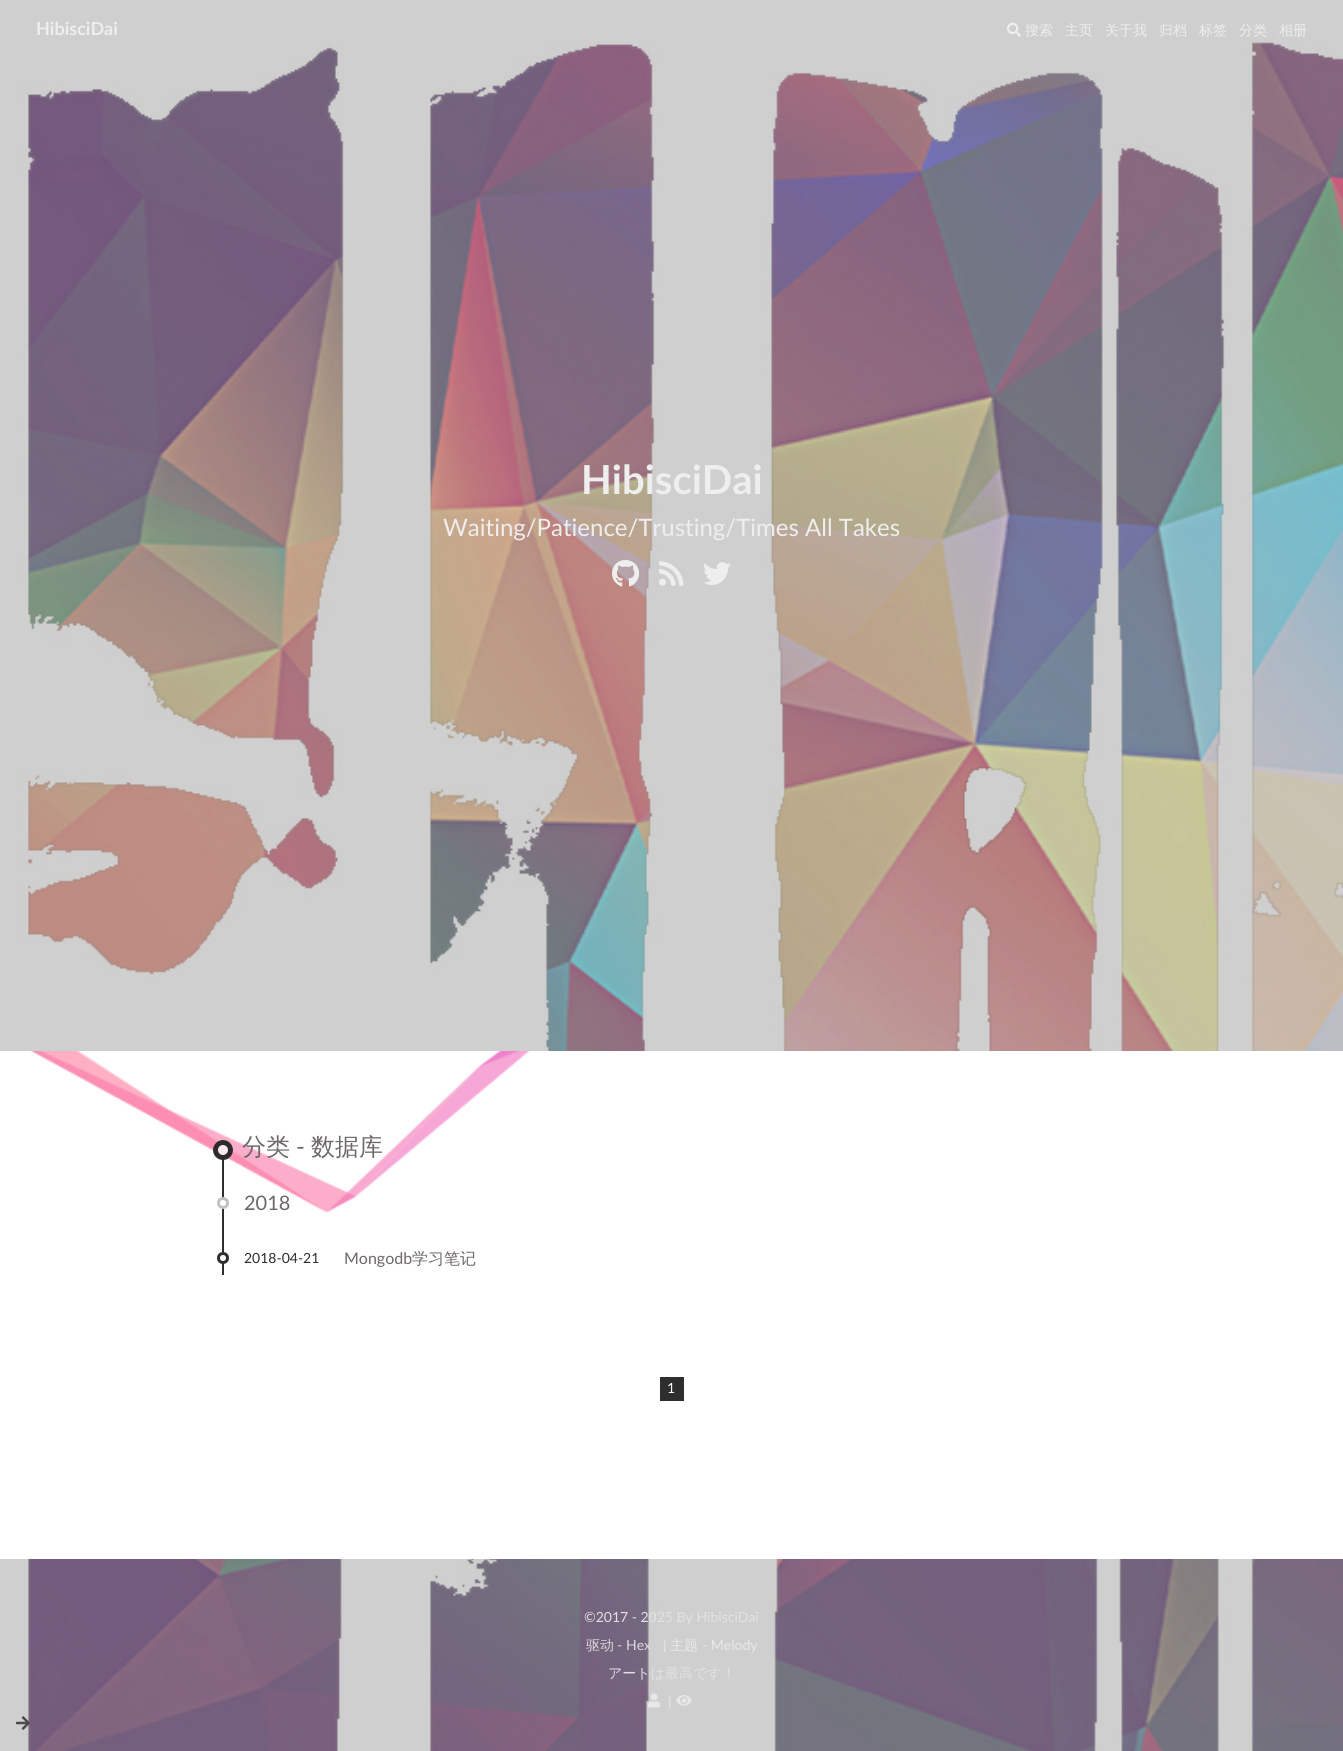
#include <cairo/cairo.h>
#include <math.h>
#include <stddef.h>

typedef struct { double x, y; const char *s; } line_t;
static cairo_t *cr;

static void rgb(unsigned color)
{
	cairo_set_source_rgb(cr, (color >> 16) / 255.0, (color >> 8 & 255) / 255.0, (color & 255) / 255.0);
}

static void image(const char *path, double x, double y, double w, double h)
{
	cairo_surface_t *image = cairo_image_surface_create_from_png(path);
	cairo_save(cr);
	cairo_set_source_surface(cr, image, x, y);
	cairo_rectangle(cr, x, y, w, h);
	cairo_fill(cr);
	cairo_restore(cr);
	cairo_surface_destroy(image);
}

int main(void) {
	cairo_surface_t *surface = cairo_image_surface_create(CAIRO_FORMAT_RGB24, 1343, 1751);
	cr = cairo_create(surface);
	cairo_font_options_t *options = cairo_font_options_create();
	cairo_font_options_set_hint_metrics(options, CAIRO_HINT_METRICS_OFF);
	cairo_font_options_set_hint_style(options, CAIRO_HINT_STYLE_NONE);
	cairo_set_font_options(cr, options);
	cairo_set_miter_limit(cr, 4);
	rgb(0xffffff);
	cairo_paint(cr);
	rgb(0x2e2e2e);
	cairo_rectangle(cr, 222, 1157, 2, 26);
	cairo_fill(cr);
	image("img/1.png", 0, 0, 1343, 1051);
	image("img/2.png", 1007, 22, 14, 15);
	image("img/3.png", 612, 559, 28, 28);
	image("img/4.png", 659, 561, 25, 25);
	image("img/5.png", 703, 562, 28, 23);
	image("img/6.png", 30, 1051, 500, 162);
	cairo_set_source_rgba(cr, 1, 1, 1, 0.82);
	cairo_arc(cr, 223, 1150, 10, 0, 2 * M_PI);
	cairo_fill(cr);
	cairo_arc(cr, 223, 1150, 7.5, 0, 2 * M_PI);
	cairo_set_source_rgba(cr, 0, 0, 0, 0.82);
	cairo_set_line_width(cr, 5);
	cairo_stroke(cr);
	rgb(0x2e2e2e);
	cairo_rectangle(cr, 222, 1183, 2, 92);
	cairo_fill(cr);
	rgb(0xffffff);
	cairo_arc(cr, 223, 1203, 4.5, 0, 2 * M_PI);
	cairo_fill_preserve(cr);
	rgb(0xc2c2c2);
	cairo_set_line_width(cr, 3);
	cairo_stroke(cr);
	rgb(0xffffff);
	cairo_arc(cr, 223, 1258, 4.5, 0, 2 * M_PI);
	cairo_fill_preserve(cr);
	rgb(0x2e2e2e);
	cairo_stroke(cr);
	cairo_rectangle(cr, 660, 1377, 24, 24);
	cairo_fill(cr);
	image("img/7.png", 0, 1559, 1343, 192);
	image("img/8.png", 648, 1693, 13, 15);
	image("img/9.png", 676, 1695, 16, 11);
	image("img/10.png", 16, 1716, 14, 14);
	cairo_select_font_face(cr, "Lato", CAIRO_FONT_SLANT_NORMAL, CAIRO_FONT_WEIGHT_BOLD);
	cairo_set_font_size(cr, 18);
	rgb(0xeeeeee);
	cairo_move_to(cr, 36, 35);
	cairo_show_text(cr, "HibisciDai");
	cairo_select_font_face(cr, "WenQuanYi Zen Hei Medium", CAIRO_FONT_SLANT_NORMAL, CAIRO_FONT_WEIGHT_NORMAL);
	cairo_set_font_size(cr, 14);
	{
		static const line_t items[] = {
			{1025, 35, "搜索"},
			{1065, 35, "主页"},
			{1105, 35, "关于我"},
			{1159, 35, "归档"},
			{1199, 35, "标签"},
			{1239, 35, "分类"},
			{1279, 35, "相册"},
		};
		for (size_t i = 0; i < sizeof items / sizeof *items; i++) {
			cairo_move_to(cr, items[i].x, items[i].y);
			cairo_show_text(cr, items[i].s);
		}
	}
	cairo_select_font_face(cr, "Lato", CAIRO_FONT_SLANT_NORMAL, CAIRO_FONT_WEIGHT_BOLD);
	cairo_set_font_size(cr, 40);
	cairo_move_to(cr, 581, 494);
	cairo_show_text(cr, "HibisciDai");
	cairo_select_font_face(cr, "Lato", CAIRO_FONT_SLANT_NORMAL, CAIRO_FONT_WEIGHT_NORMAL);
	cairo_set_font_size(cr, 24);
	cairo_move_to(cr, 443, 536);
	cairo_show_text(cr, "Waiting/Patience/Trusting/Times All Takes");
	cairo_select_font_face(cr, "WenQuanYi Zen Hei Medium", CAIRO_FONT_SLANT_NORMAL, CAIRO_FONT_WEIGHT_NORMAL);
	rgb(0x6c6768);
	cairo_move_to(cr, 242, 1155);
	cairo_show_text(cr, "分类");
	cairo_select_font_face(cr, "Lato", CAIRO_FONT_SLANT_NORMAL, CAIRO_FONT_WEIGHT_NORMAL);
	cairo_move_to(cr, 296, 1155);
	cairo_show_text(cr, "-");
	cairo_select_font_face(cr, "WenQuanYi Zen Hei Medium", CAIRO_FONT_SLANT_NORMAL, CAIRO_FONT_WEIGHT_NORMAL);
	cairo_move_to(cr, 311, 1155);
	cairo_show_text(cr, "数据库");
	cairo_select_font_face(cr, "Lato", CAIRO_FONT_SLANT_NORMAL, CAIRO_FONT_WEIGHT_NORMAL);
	cairo_set_font_size(cr, 20);
	cairo_move_to(cr, 244, 1210);
	cairo_show_text(cr, "2018");
	cairo_set_font_size(cr, 14);
	rgb(0x2e2e2e);
	cairo_move_to(cr, 244, 1263);
	cairo_show_text(cr, "2018-04-21");
	cairo_set_font_size(cr, 16);
	rgb(0x6c6768);
	cairo_move_to(cr, 344, 1264);
	cairo_show_text(cr, "Mongodb");
	cairo_select_font_face(cr, "WenQuanYi Zen Hei Medium", CAIRO_FONT_SLANT_NORMAL, CAIRO_FONT_WEIGHT_NORMAL);
	cairo_move_to(cr, 412, 1264);
	cairo_show_text(cr, "学习笔记");
	cairo_select_font_face(cr, "Lato", CAIRO_FONT_SLANT_NORMAL, CAIRO_FONT_WEIGHT_NORMAL);
	cairo_set_font_size(cr, 14);
	rgb(0xffffff);
	cairo_move_to(cr, 667, 1393);
	cairo_show_text(cr, "1");
	rgb(0xe3e2e3);
	cairo_move_to(cr, 584, 1622);
	cairo_show_text(cr, "©2017 - 2025 By HibisciDai");
	cairo_select_font_face(cr, "WenQuanYi Zen Hei Medium", CAIRO_FONT_SLANT_NORMAL, CAIRO_FONT_WEIGHT_NORMAL);
	rgb(0xd8d5d9);
	cairo_move_to(cr, 586, 1650);
	cairo_show_text(cr, "驱动");
	cairo_select_font_face(cr, "Lato", CAIRO_FONT_SLANT_NORMAL, CAIRO_FONT_WEIGHT_NORMAL);
	cairo_move_to(cr, 617, 1650);
	cairo_show_text(cr, "-");
	rgb(0xdddbde);
	cairo_move_to(cr, 626, 1650);
	cairo_show_text(cr, "Hex");
	rgb(0xe8e8e8);
	cairo_move_to(cr, 663, 1650);
	cairo_show_text(cr, "|");
	cairo_select_font_face(cr, "WenQuanYi Zen Hei Medium", CAIRO_FONT_SLANT_NORMAL, CAIRO_FONT_WEIGHT_NORMAL);
	cairo_move_to(cr, 670, 1650);
	cairo_show_text(cr, "主题");
	cairo_select_font_face(cr, "Lato", CAIRO_FONT_SLANT_NORMAL, CAIRO_FONT_WEIGHT_NORMAL);
	cairo_move_to(cr, 702, 1650);
	cairo_show_text(cr, "- Melody");
	cairo_select_font_face(cr, "WenQuanYi Zen Hei Medium", CAIRO_FONT_SLANT_NORMAL, CAIRO_FONT_WEIGHT_NORMAL);
	rgb(0xe3e2e3);
	cairo_move_to(cr, 608, 1678);
	cairo_show_text(cr, "アートは最高です！");
	cairo_select_font_face(cr, "Lato", CAIRO_FONT_SLANT_NORMAL, CAIRO_FONT_WEIGHT_NORMAL);
	rgb(0xe8e8e8);
	cairo_move_to(cr, 668, 1706);
	cairo_show_text(cr, "|");
	cairo_surface_write_to_png(surface, "page.png");
	cairo_font_options_destroy(options);
	cairo_destroy(cr);
	cairo_surface_destroy(surface);
	return 0;
}
